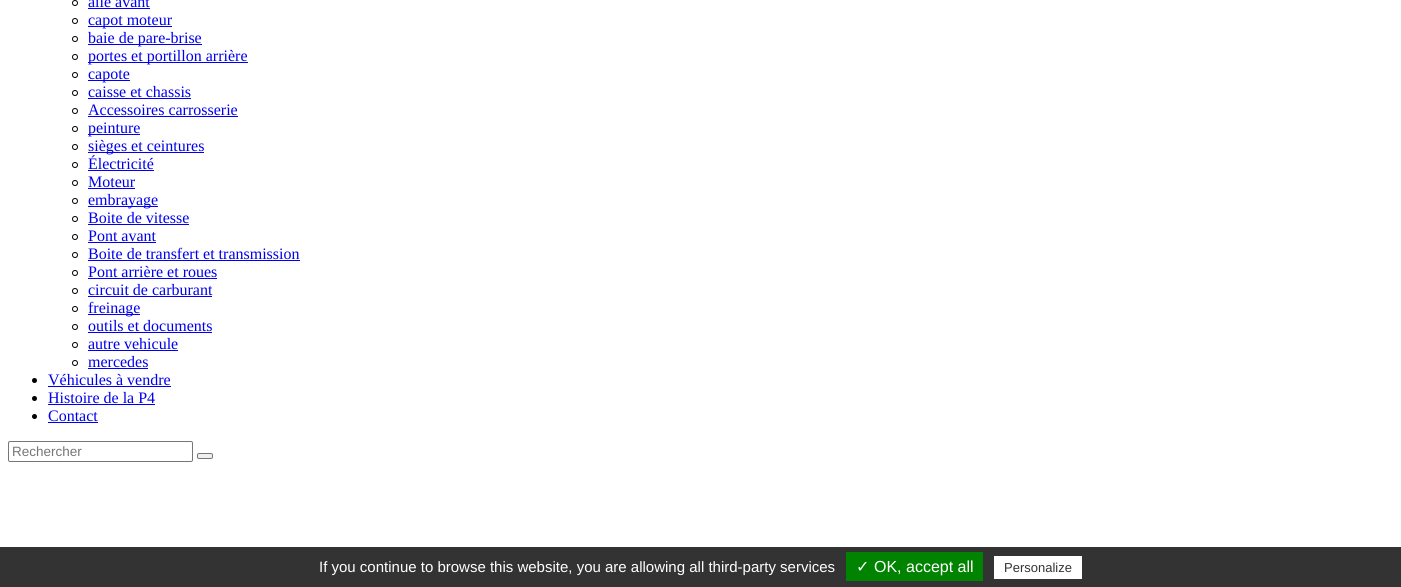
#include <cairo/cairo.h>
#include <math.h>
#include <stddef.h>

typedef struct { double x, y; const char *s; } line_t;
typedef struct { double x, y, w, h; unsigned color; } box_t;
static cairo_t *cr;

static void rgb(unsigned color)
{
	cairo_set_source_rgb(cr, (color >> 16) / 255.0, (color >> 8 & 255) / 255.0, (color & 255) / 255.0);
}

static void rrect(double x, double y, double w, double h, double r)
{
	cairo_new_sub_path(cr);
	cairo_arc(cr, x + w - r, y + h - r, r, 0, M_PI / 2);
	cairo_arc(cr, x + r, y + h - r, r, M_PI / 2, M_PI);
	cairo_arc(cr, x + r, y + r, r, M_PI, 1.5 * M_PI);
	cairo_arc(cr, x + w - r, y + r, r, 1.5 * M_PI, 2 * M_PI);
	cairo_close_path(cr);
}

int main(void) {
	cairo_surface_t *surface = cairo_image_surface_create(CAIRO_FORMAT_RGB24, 1401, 587);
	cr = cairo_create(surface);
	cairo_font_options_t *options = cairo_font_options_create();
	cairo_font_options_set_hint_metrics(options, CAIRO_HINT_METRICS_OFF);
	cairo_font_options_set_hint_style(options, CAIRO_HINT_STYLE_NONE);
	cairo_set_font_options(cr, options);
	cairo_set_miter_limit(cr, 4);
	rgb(0xffffff);
	cairo_paint(cr);
	cairo_arc(cr, 75, 3, 2.5, 0, 2 * M_PI);
	rgb(0x000000);
	cairo_set_line_width(cr, 1);
	cairo_stroke(cr);
	rgb(0x0000ee);
	cairo_rectangle(cr, 88, 8, 62, 1);
	cairo_fill(cr);
	cairo_arc(cr, 75, 21, 2.5, 0, 2 * M_PI);
	rgb(0x000000);
	cairo_stroke(cr);
	rgb(0x0000ee);
	cairo_rectangle(cr, 88, 26, 84, 1);
	cairo_fill(cr);
	cairo_arc(cr, 75, 39, 2.5, 0, 2 * M_PI);
	rgb(0x000000);
	cairo_stroke(cr);
	rgb(0x0000ee);
	cairo_rectangle(cr, 88, 44, 114, 1);
	cairo_fill(cr);
	cairo_arc(cr, 75, 57, 2.5, 0, 2 * M_PI);
	rgb(0x000000);
	cairo_stroke(cr);
	rgb(0x0000ee);
	cairo_rectangle(cr, 88, 62, 160, 1);
	cairo_fill(cr);
	cairo_arc(cr, 75, 75, 2.5, 0, 2 * M_PI);
	rgb(0x000000);
	cairo_stroke(cr);
	rgb(0x0000ee);
	cairo_rectangle(cr, 88, 80, 42, 1);
	cairo_fill(cr);
	cairo_arc(cr, 75, 93, 2.5, 0, 2 * M_PI);
	rgb(0x000000);
	cairo_stroke(cr);
	rgb(0x0000ee);
	cairo_rectangle(cr, 88, 98, 103, 1);
	cairo_fill(cr);
	cairo_arc(cr, 75, 111, 2.5, 0, 2 * M_PI);
	rgb(0x000000);
	cairo_stroke(cr);
	rgb(0x0000ee);
	cairo_rectangle(cr, 88, 116, 150, 1);
	cairo_fill(cr);
	cairo_arc(cr, 75, 129, 2.5, 0, 2 * M_PI);
	rgb(0x000000);
	cairo_stroke(cr);
	rgb(0x0000ee);
	cairo_rectangle(cr, 88, 134, 52, 1);
	cairo_fill(cr);
	cairo_arc(cr, 75, 147, 2.5, 0, 2 * M_PI);
	rgb(0x000000);
	cairo_stroke(cr);
	rgb(0x0000ee);
	cairo_rectangle(cr, 88, 152, 116, 1);
	cairo_fill(cr);
	cairo_arc(cr, 75, 165, 2.5, 0, 2 * M_PI);
	rgb(0x000000);
	cairo_stroke(cr);
	rgb(0x0000ee);
	cairo_rectangle(cr, 88, 170, 66, 1);
	cairo_fill(cr);
	cairo_arc(cr, 75, 183, 2.5, 0, 2 * M_PI);
	rgb(0x000000);
	cairo_stroke(cr);
	rgb(0x0000ee);
	cairo_rectangle(cr, 88, 188, 47, 1);
	cairo_fill(cr);
	cairo_arc(cr, 75, 201, 2.5, 0, 2 * M_PI);
	rgb(0x000000);
	cairo_stroke(cr);
	rgb(0x0000ee);
	cairo_rectangle(cr, 88, 206, 70, 1);
	cairo_fill(cr);
	cairo_arc(cr, 75, 219, 2.5, 0, 2 * M_PI);
	rgb(0x000000);
	cairo_stroke(cr);
	rgb(0x0000ee);
	cairo_rectangle(cr, 88, 224, 101, 1);
	cairo_fill(cr);
	cairo_arc(cr, 75, 237, 2.5, 0, 2 * M_PI);
	rgb(0x000000);
	cairo_stroke(cr);
	rgb(0x0000ee);
	cairo_rectangle(cr, 88, 242, 68, 1);
	cairo_fill(cr);
	cairo_arc(cr, 75, 255, 2.5, 0, 2 * M_PI);
	rgb(0x000000);
	cairo_stroke(cr);
	rgb(0x0000ee);
	cairo_rectangle(cr, 88, 260, 212, 1);
	cairo_fill(cr);
	cairo_arc(cr, 75, 273, 2.5, 0, 2 * M_PI);
	rgb(0x000000);
	cairo_stroke(cr);
	rgb(0x0000ee);
	cairo_rectangle(cr, 88, 278, 129, 1);
	cairo_fill(cr);
	cairo_arc(cr, 75, 291, 2.5, 0, 2 * M_PI);
	rgb(0x000000);
	cairo_stroke(cr);
	rgb(0x0000ee);
	cairo_rectangle(cr, 88, 296, 124, 1);
	cairo_fill(cr);
	cairo_arc(cr, 75, 309, 2.5, 0, 2 * M_PI);
	rgb(0x000000);
	cairo_stroke(cr);
	rgb(0x0000ee);
	cairo_rectangle(cr, 88, 314, 52, 1);
	cairo_fill(cr);
	cairo_arc(cr, 75, 327, 2.5, 0, 2 * M_PI);
	rgb(0x000000);
	cairo_stroke(cr);
	rgb(0x0000ee);
	cairo_rectangle(cr, 88, 332, 124, 1);
	cairo_fill(cr);
	cairo_arc(cr, 75, 345, 2.5, 0, 2 * M_PI);
	rgb(0x000000);
	cairo_stroke(cr);
	rgb(0x0000ee);
	cairo_rectangle(cr, 88, 350, 90, 1);
	cairo_fill(cr);
	cairo_arc(cr, 75, 363, 2.5, 0, 2 * M_PI);
	rgb(0x000000);
	cairo_stroke(cr);
	rgb(0x0000ee);
	cairo_rectangle(cr, 88, 368, 60, 1);
	cairo_fill(cr);
	rgb(0x000000);
	cairo_arc(cr, 34.5, 380.5, 2.5, 0, 2 * M_PI);
	cairo_fill(cr);
	rgb(0x0000ee);
	cairo_rectangle(cr, 48, 386, 123, 1);
	cairo_fill(cr);
	rgb(0x000000);
	cairo_arc(cr, 34.5, 398.5, 2.5, 0, 2 * M_PI);
	cairo_fill(cr);
	rgb(0x0000ee);
	cairo_rectangle(cr, 48, 404, 107, 1);
	cairo_fill(cr);
	rgb(0x000000);
	cairo_arc(cr, 34.5, 416.5, 2.5, 0, 2 * M_PI);
	cairo_fill(cr);
	rgb(0x0000ee);
	cairo_rectangle(cr, 48, 422, 50, 1);
	cairo_fill(cr);
	rrect(8.5, 441.5, 184, 20, 1.5);
	rgb(0x767676);
	cairo_stroke(cr);
	rgb(0xefefef);
	rrect(197.5, 453.5, 15, 5, 1.5);
	cairo_fill_preserve(cr);
	rgb(0x767676);
	cairo_stroke(cr);
	{
		static const box_t items[] = {
			{0, 547, 1401, 40, 0x333333},
			{846, 552, 137, 29, 0x008300},
			{994, 556, 88, 23, 0xffffff},
		};
		for (size_t i = 0; i < sizeof items / sizeof *items; i++) {
			rgb(items[i].color);
			cairo_rectangle(cr, items[i].x, items[i].y, items[i].w, items[i].h);
			cairo_fill(cr);
		}
	}
	cairo_select_font_face(cr, "Liberation Serif", CAIRO_FONT_SLANT_NORMAL, CAIRO_FONT_WEIGHT_NORMAL);
	cairo_set_font_size(cr, 16);
	rgb(0x0000ee);
	{
		static const line_t items[] = {
			{88, 7, "aile avant"},
			{88, 25, "capot moteur"},
			{88, 43, "baie de pare-brise"},
			{88, 61, "portes et portillon arrière"},
			{88, 79, "capote"},
			{88, 97, "caisse et chassis"},
			{88, 115, "Accessoires carrosserie"},
			{88, 133, "peinture"},
			{88, 151, "sièges et ceintures"},
			{88, 169, "Électricité"},
			{88, 187, "Moteur"},
			{88, 205, "embrayage"},
			{88, 223, "Boite de vitesse"},
			{88, 241, "Pont avant"},
			{88, 259, "Boite de transfert et transmission"},
			{88, 277, "Pont arrière et roues"},
			{88, 295, "circuit de carburant"},
			{88, 313, "freinage"},
			{88, 331, "outils et documents"},
			{88, 349, "autre vehicule"},
			{88, 367, "mercedes"},
			{48, 385, "Véhicules à vendre"},
			{48, 403, "Histoire de la P4"},
			{48, 421, "Contact"},
		};
		for (size_t i = 0; i < sizeof items / sizeof *items; i++) {
			cairo_move_to(cr, items[i].x, items[i].y);
			cairo_show_text(cr, items[i].s);
		}
	}
	cairo_select_font_face(cr, "Liberation Sans", CAIRO_FONT_SLANT_NORMAL, CAIRO_FONT_WEIGHT_NORMAL);
	cairo_set_font_size(cr, 13.5);
	rgb(0x757575);
	cairo_move_to(cr, 12, 456);
	cairo_show_text(cr, "Rechercher");
	cairo_set_font_size(cr, 15);
	rgb(0xffffff);
	cairo_move_to(cr, 319, 572);
	cairo_show_text(cr, "If you continue to browse this website, you are allowing all third-party services");
	cairo_select_font_face(cr, "DejaVu Sans", CAIRO_FONT_SLANT_NORMAL, CAIRO_FONT_WEIGHT_NORMAL);
	cairo_set_font_size(cr, 16);
	cairo_move_to(cr, 856, 572);
	cairo_show_text(cr, "✓");
	cairo_select_font_face(cr, "Liberation Sans", CAIRO_FONT_SLANT_NORMAL, CAIRO_FONT_WEIGHT_NORMAL);
	cairo_move_to(cr, 874, 572);
	cairo_show_text(cr, "OK, accept all");
	cairo_set_font_size(cr, 13);
	rgb(0x333333);
	cairo_move_to(cr, 1004, 572);
	cairo_show_text(cr, "Personalize");
	cairo_surface_write_to_png(surface, "page.png");
	cairo_font_options_destroy(options);
	cairo_destroy(cr);
	cairo_surface_destroy(surface);
	return 0;
}
